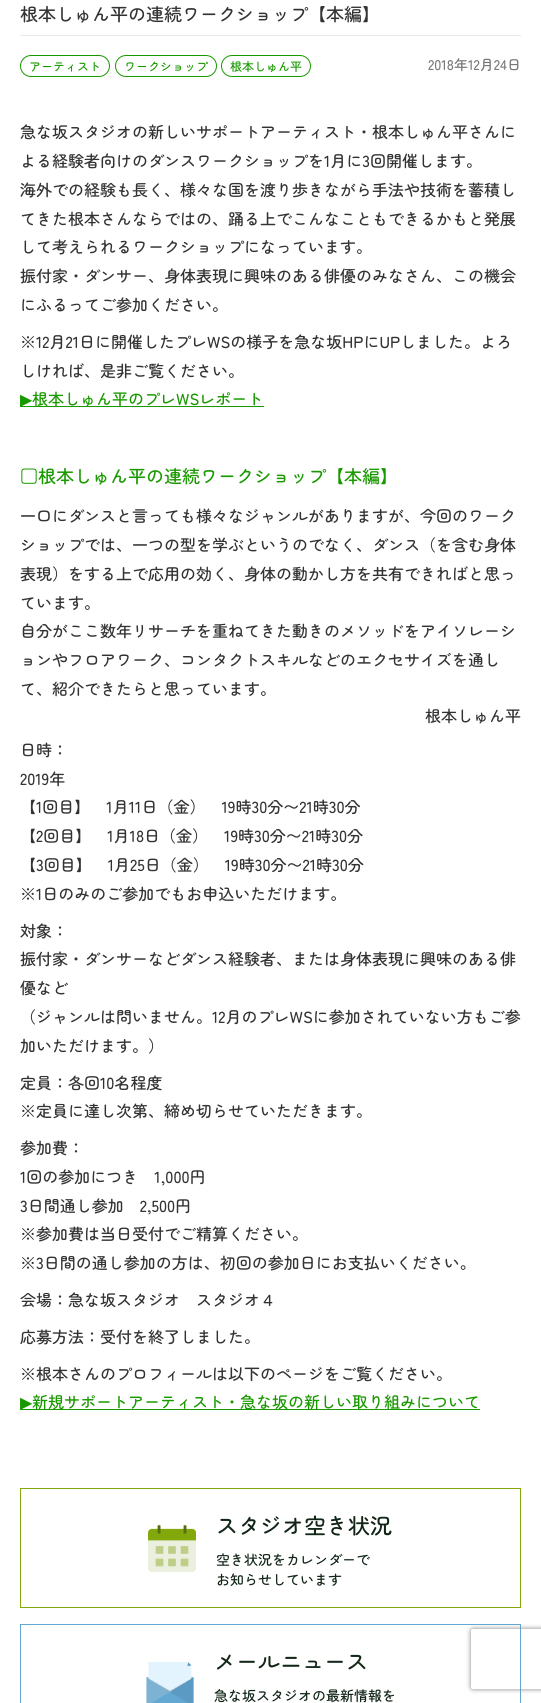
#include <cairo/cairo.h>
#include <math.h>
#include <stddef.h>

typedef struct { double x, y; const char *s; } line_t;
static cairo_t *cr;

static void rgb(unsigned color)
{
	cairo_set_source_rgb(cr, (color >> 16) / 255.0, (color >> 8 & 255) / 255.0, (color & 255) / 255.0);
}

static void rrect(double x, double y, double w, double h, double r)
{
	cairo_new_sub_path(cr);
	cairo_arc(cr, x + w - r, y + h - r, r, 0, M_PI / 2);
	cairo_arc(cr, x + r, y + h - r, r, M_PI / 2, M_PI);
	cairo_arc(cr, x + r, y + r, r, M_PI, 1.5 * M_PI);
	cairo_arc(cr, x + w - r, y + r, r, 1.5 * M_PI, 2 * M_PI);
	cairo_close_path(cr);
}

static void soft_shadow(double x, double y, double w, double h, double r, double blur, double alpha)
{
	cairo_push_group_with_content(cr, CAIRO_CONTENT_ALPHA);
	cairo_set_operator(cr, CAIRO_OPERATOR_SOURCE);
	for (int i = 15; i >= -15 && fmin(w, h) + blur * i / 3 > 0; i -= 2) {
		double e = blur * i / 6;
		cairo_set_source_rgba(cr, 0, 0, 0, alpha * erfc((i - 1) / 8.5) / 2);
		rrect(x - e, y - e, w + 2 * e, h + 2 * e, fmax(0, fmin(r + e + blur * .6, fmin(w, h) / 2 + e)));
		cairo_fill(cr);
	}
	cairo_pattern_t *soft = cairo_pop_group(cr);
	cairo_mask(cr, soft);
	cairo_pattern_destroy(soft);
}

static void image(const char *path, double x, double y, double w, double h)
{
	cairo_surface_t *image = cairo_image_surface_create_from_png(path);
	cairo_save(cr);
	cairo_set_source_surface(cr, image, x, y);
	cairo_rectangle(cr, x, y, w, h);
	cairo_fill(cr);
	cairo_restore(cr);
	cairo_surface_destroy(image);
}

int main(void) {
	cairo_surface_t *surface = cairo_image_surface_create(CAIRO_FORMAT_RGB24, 541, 1703);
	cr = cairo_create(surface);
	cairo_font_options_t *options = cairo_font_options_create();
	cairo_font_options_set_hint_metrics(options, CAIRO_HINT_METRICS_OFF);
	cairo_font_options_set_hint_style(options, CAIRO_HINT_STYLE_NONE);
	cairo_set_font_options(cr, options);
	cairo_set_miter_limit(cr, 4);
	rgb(0xffffff);
	cairo_paint(cr);
	rgb(0xe5e7eb);
	cairo_rectangle(cr, 20, 35, 501, 1);
	cairo_fill(cr);
	rrect(20.5, 55.5, 89, 21, 10.5);
	rgb(0x199900);
	cairo_set_line_width(cr, 1);
	cairo_stroke(cr);
	rrect(115.5, 55.5, 101, 21, 10.5);
	cairo_stroke(cr);
	rrect(221.5, 55.5, 89, 21, 10.5);
	cairo_stroke(cr);
	cairo_rectangle(cr, 20, 406, 244, 1);
	cairo_fill(cr);
	cairo_rectangle(cr, 20, 1409, 460, 1);
	cairo_fill(cr);
	cairo_rectangle(cr, 20.5, 1488.5, 500, 119);
	rgb(0x82a80c);
	cairo_stroke(cr);
	image("img/1.png", 148, 1525, 48, 47);
	cairo_rectangle(cr, 20.5, 1624.5, 500, 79);
	rgb(0x63a8d2);
	cairo_stroke(cr);
	image("img/2.png", 146, 1662, 48, 41);
	cairo_save(cr);
	cairo_set_fill_rule(cr, CAIRO_FILL_RULE_EVEN_ODD);
	cairo_new_path(cr);
	cairo_move_to(cr, 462, 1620);
	cairo_line_to(cr, 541, 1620);
	cairo_line_to(cr, 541, 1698);
	cairo_line_to(cr, 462, 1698);
	cairo_close_path(cr);
	cairo_move_to(cr, 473, 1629);
	cairo_line_to(cr, 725, 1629);
	cairo_curve_to(cr, 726, 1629, 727, 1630, 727, 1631);
	cairo_line_to(cr, 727, 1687);
	cairo_curve_to(cr, 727, 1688, 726, 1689, 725, 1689);
	cairo_line_to(cr, 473, 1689);
	cairo_curve_to(cr, 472, 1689, 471, 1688, 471, 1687);
	cairo_line_to(cr, 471, 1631);
	cairo_curve_to(cr, 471, 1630, 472, 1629, 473, 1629);
	cairo_close_path(cr);
	cairo_clip(cr);
	rgb(0x808080);
	soft_shadow(471, 1629, 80, 60, 2, 2.5, 1);
	cairo_restore(cr);
	cairo_select_font_face(cr, "Zen Maru Gothic Medium", CAIRO_FONT_SLANT_NORMAL, CAIRO_FONT_WEIGHT_NORMAL);
	cairo_set_font_size(cr, 18);
	rgb(0x333333);
	cairo_move_to(cr, 20, 21);
	cairo_show_text(cr, "根本しゅん平の連続ワークショップ【本編】");
	cairo_set_font_size(cr, 12);
	rgb(0x199900);
	{
		static const line_t items[] = {
			{29, 71, "アーティスト"},
			{124, 71, "ワークショップ"},
			{230, 71, "根本しゅん平"},
		};
		for (size_t i = 0; i < sizeof items / sizeof *items; i++) {
			cairo_move_to(cr, items[i].x, items[i].y);
			cairo_show_text(cr, items[i].s);
		}
	}
	cairo_set_font_size(cr, 14);
	rgb(0x777777);
	cairo_move_to(cr, 428, 70);
	cairo_show_text(cr, "2018年12月24日");
	cairo_set_font_size(cr, 16);
	rgb(0x333333);
	{
		static const line_t items[] = {
			{20, 138, "急な坂スタジオの新しいサポートアーティスト・根本しゅん平さんに"},
			{20, 167, "よる経験者向けのダンスワークショップを1月に3回開催します。"},
			{20, 196, "海外での経験も長く、様々な国を渡り歩きながら手法や技術を蓄積し"},
			{20, 225, "てきた根本さんならではの、踊る上でこんなこともできるかもと発展"},
			{20, 253, "して考えられるワークショップになっています。"},
			{20, 282, "振付家・ダンサー、身体表現に興味のある俳優のみなさん、この機会"},
			{20, 311, "にふるってご参加ください。"},
			{20, 348, "※12月21日に開催したプレWSの様子を急な坂HPにUPしました。よろ"},
			{20, 377, "しければ、是非ご覧ください。"},
		};
		for (size_t i = 0; i < sizeof items / sizeof *items; i++) {
			cairo_move_to(cr, items[i].x, items[i].y);
			cairo_show_text(cr, items[i].s);
		}
	}
	cairo_select_font_face(cr, "DejaVu Sans", CAIRO_FONT_SLANT_NORMAL, CAIRO_FONT_WEIGHT_NORMAL);
	rgb(0x199900);
	cairo_move_to(cr, 20, 405);
	cairo_show_text(cr, "▶");
	cairo_select_font_face(cr, "Zen Maru Gothic Medium", CAIRO_FONT_SLANT_NORMAL, CAIRO_FONT_WEIGHT_NORMAL);
	cairo_move_to(cr, 32, 405);
	cairo_show_text(cr, "根本しゅん平のプレWSレポート");
	cairo_set_font_size(cr, 18);
	cairo_move_to(cr, 20, 483);
	cairo_show_text(cr, "□根本しゅん平の連続ワークショップ【本編】");
	cairo_set_font_size(cr, 16);
	rgb(0x333333);
	{
		static const line_t items[] = {
			{20, 522, "一口にダンスと言っても様々なジャンルがありますが、今回のワーク"},
			{20, 551, "ショップでは、一つの型を学ぶというのでなく、ダンス（を含む身体"},
			{20, 580, "表現）をする上で応用の効く、身体の動かし方を共有できればと思っ"},
			{20, 609, "ています。"},
			{20, 637, "自分がここ数年リサーチを重ねてきた動きのメソッドをアイソレーシ"},
			{20, 666, "ョンやフロアワーク、コンタクトスキルなどのエクセサイズを通し"},
			{20, 695, "て、紹介できたらと思っています。"},
			{425, 722, "根本しゅん平"},
			{20, 756, "日時："},
			{20, 785, "2019年"},
			{20, 813, "【1回目】　1月11日（金）　19時30分〜21時30分"},
			{20, 842, "【2回目】　1月18日（金）　19時30分〜21時30分"},
			{20, 871, "【3回目】　1月25日（金）　19時30分〜21時30分"},
			{20, 900, "※1日のみのご参加でもお申込いただけます。"},
			{20, 937, "対象："},
			{20, 965, "振付家・ダンサーなどダンス経験者、または身体表現に興味のある俳"},
			{20, 994, "優など"},
			{20, 1023, "（ジャンルは問いません。12月のプレWSに参加されていない方もご参"},
			{20, 1052, "加いただけます。）"},
			{20, 1089, "定員：各回10名程度"},
			{20, 1117, "※定員に達し次第、締め切らせていただきます。"},
			{20, 1154, "参加費："},
			{20, 1183, "1回の参加につき　1,000円"},
			{20, 1212, "3日間通し参加　2,500円"},
			{20, 1240, "※参加費は当日受付でご精算ください。"},
			{20, 1269, "※3日間の通し参加の方は、初回の参加日にお支払いください。"},
			{20, 1306, "会場：急な坂スタジオ　スタジオ４"},
			{20, 1343, "応募方法：受付を終了しました。"},
			{20, 1380, "※根本さんのプロフィールは以下のページをご覧ください。"},
		};
		for (size_t i = 0; i < sizeof items / sizeof *items; i++) {
			cairo_move_to(cr, items[i].x, items[i].y);
			cairo_show_text(cr, items[i].s);
		}
	}
	cairo_select_font_face(cr, "DejaVu Sans", CAIRO_FONT_SLANT_NORMAL, CAIRO_FONT_WEIGHT_NORMAL);
	rgb(0x199900);
	cairo_move_to(cr, 20, 1408);
	cairo_show_text(cr, "▶");
	cairo_select_font_face(cr, "Zen Maru Gothic Medium", CAIRO_FONT_SLANT_NORMAL, CAIRO_FONT_WEIGHT_NORMAL);
	cairo_move_to(cr, 32, 1408);
	cairo_show_text(cr, "新規サポートアーティスト・急な坂の新しい取り組みについて");
	cairo_set_font_size(cr, 22);
	rgb(0x122618);
	cairo_move_to(cr, 216, 1534);
	cairo_show_text(cr, "スタジオ空き状況");
	cairo_set_font_size(cr, 14);
	cairo_move_to(cr, 216, 1565);
	cairo_show_text(cr, "空き状況をカレンダーで");
	cairo_move_to(cr, 216, 1585);
	cairo_show_text(cr, "お知らせしています");
	cairo_set_font_size(cr, 22);
	cairo_move_to(cr, 214, 1670);
	cairo_show_text(cr, "メールニュース");
	cairo_set_font_size(cr, 14);
	cairo_move_to(cr, 214, 1701);
	cairo_show_text(cr, "急な坂スタジオの最新情報を");
	cairo_surface_write_to_png(surface, "page.png");
	cairo_font_options_destroy(options);
	cairo_destroy(cr);
	cairo_surface_destroy(surface);
	return 0;
}
